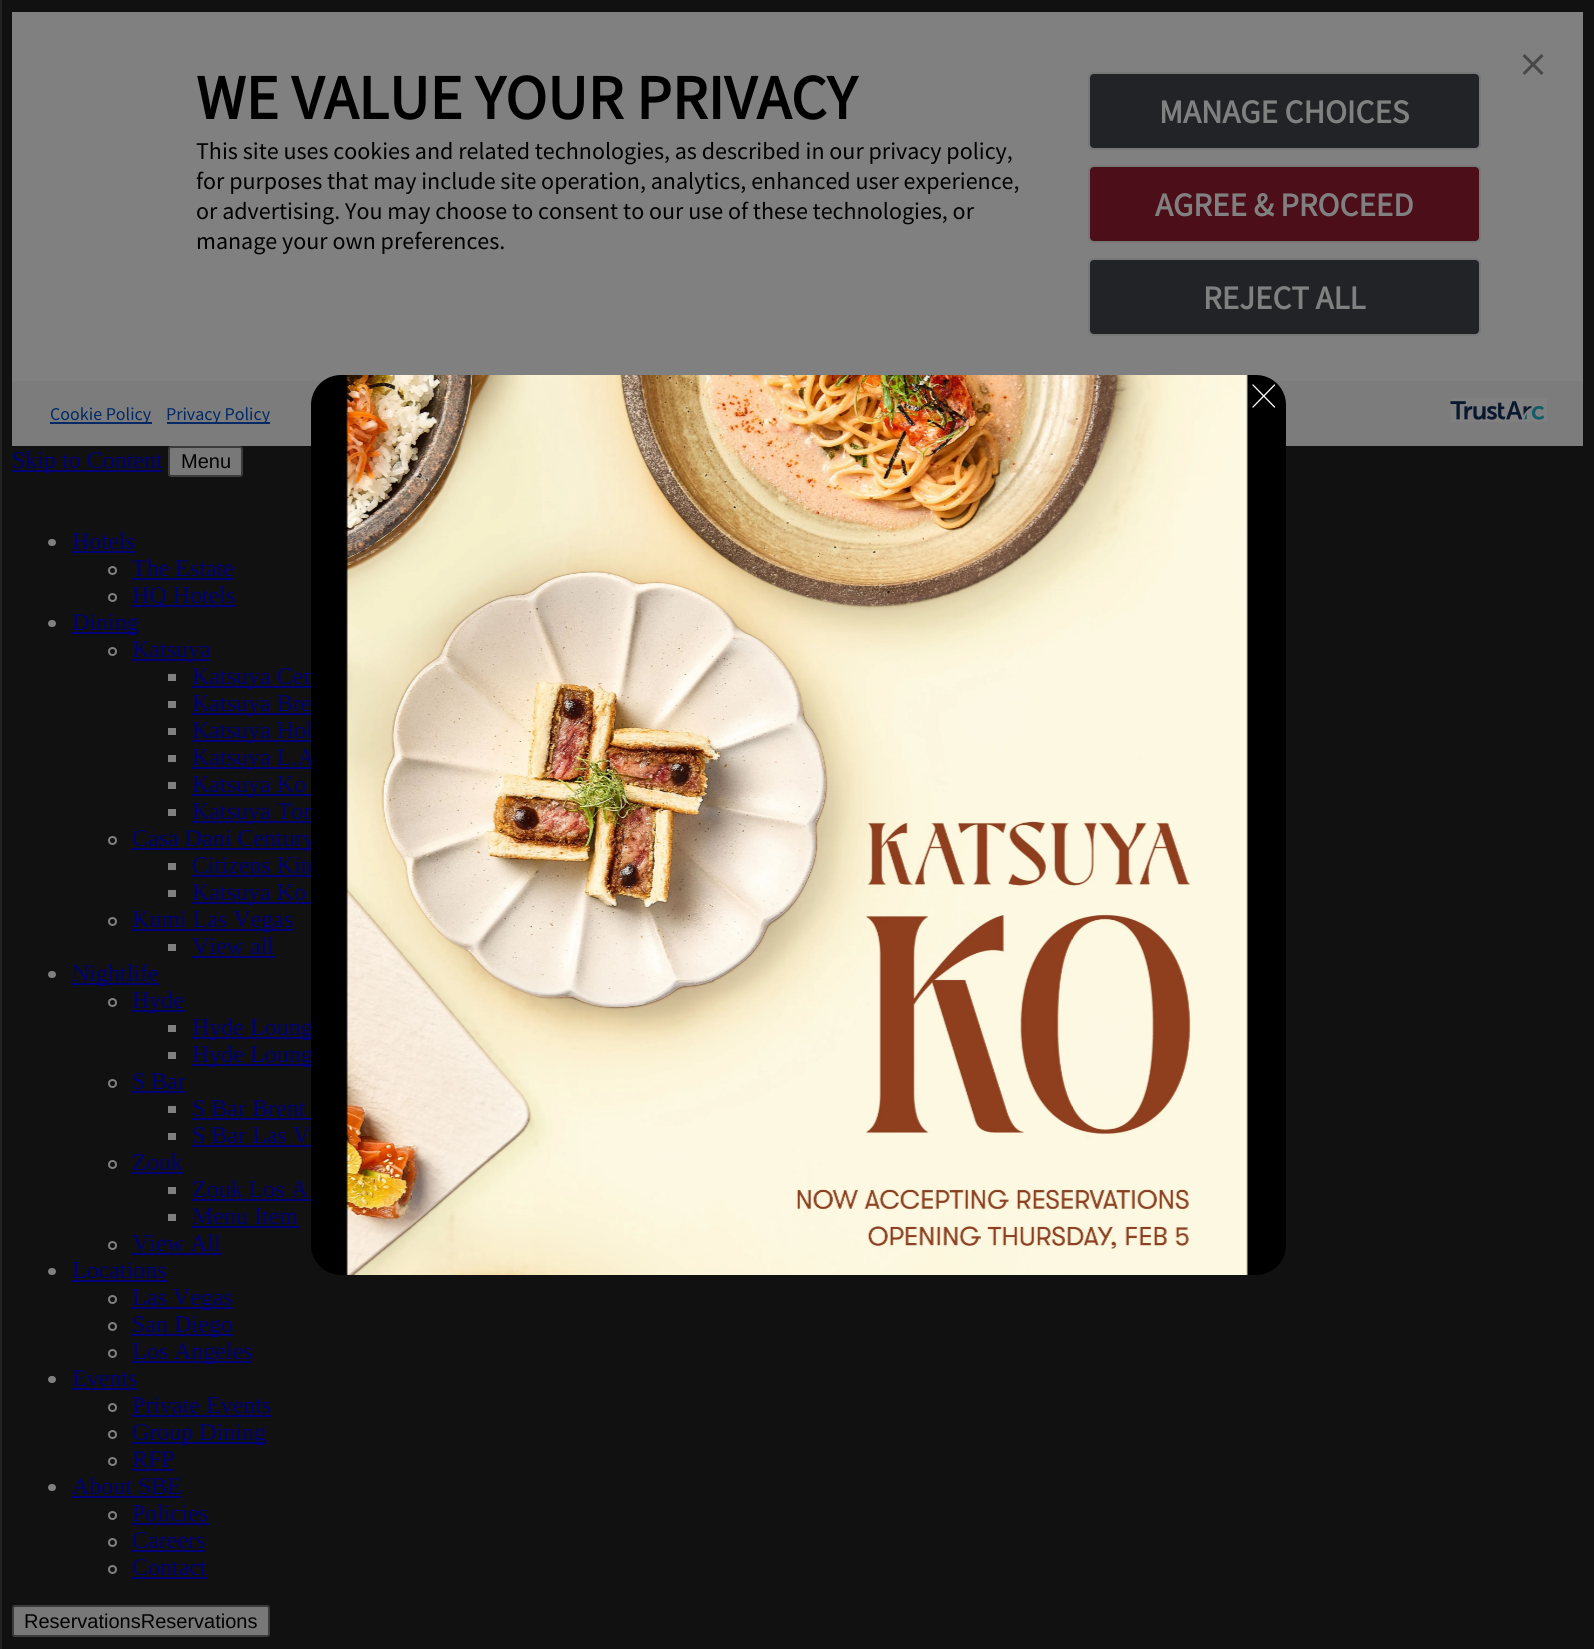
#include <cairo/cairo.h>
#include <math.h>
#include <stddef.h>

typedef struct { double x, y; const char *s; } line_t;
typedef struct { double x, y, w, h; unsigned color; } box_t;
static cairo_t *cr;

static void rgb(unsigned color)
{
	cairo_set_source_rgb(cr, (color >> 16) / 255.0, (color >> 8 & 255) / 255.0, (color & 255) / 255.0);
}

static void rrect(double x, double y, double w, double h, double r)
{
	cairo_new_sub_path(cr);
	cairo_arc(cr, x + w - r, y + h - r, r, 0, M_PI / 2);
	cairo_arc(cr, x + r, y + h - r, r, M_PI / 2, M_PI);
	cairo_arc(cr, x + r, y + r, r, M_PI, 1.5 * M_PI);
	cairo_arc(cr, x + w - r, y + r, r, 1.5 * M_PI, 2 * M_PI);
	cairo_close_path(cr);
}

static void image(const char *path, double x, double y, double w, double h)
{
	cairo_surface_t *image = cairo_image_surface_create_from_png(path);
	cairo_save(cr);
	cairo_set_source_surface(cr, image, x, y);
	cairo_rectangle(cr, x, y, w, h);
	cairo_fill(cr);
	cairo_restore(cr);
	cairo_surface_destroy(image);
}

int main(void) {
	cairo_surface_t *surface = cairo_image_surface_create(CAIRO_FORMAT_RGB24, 1594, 1649);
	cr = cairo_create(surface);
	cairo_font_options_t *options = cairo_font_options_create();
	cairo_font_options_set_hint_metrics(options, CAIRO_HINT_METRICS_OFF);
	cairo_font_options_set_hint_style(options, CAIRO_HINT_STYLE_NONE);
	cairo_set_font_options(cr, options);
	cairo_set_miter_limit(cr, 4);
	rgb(0x232222);
	cairo_paint(cr);
	rgb(0x121111);
	cairo_rectangle(cr, 2, 0, 1592, 1649);
	cairo_fill(cr);
	rgb(0x808080);
	cairo_rectangle(cr, 12, 12, 1571, 369);
	cairo_fill(cr);
	image("img/1.png", 1523, 54, 21, 21);
	rgb(0x212327);
	rrect(1089, 73, 391, 76, 5);
	cairo_fill_preserve(cr);
	rgb(0x777777);
	cairo_stroke(cr);
	rgb(0x4c0e18);
	rrect(1089, 166, 391, 76, 5);
	cairo_fill_preserve(cr);
	rgb(0x777777);
	cairo_stroke(cr);
	rgb(0x212327);
	rrect(1089, 259, 391, 76, 5);
	cairo_fill_preserve(cr);
	rgb(0x777777);
	cairo_stroke(cr);
	{
		static const box_t items[] = {
			{12, 381, 1571, 65, 0x7c7c7c},
			{50, 422, 102, 2, 0x002966},
			{167, 422, 103, 2, 0x002966},
		};
		for (size_t i = 0; i < sizeof items / sizeof *items; i++) {
			rgb(items[i].color);
			cairo_rectangle(cr, items[i].x, items[i].y, items[i].w, items[i].h);
			cairo_fill(cr);
		}
	}
	image("img/2.png", 1450, 398, 97, 24);
	rgb(0x000077);
	cairo_rectangle(cr, 12, 470, 150, 2);
	cairo_fill(cr);
	rgb(0x787878);
	rrect(169, 447, 73, 29, 2);
	cairo_fill_preserve(cr);
	rgb(0x3b3b3b);
	cairo_stroke(cr);
	rgb(0x808080);
	rrect(48, 539, 8, 7, 3.5);
	cairo_fill(cr);
	rgb(0x000077);
	cairo_rectangle(cr, 72, 551, 63, 2);
	cairo_fill(cr);
	cairo_arc(cr, 112.5, 570.5, 3.5, 0, 2 * M_PI);
	rgb(0x808080);
	cairo_stroke(cr);
	rgb(0x000077);
	cairo_rectangle(cr, 132, 578, 102, 2);
	cairo_fill(cr);
	cairo_arc(cr, 112.5, 597.5, 3.5, 0, 2 * M_PI);
	rgb(0x808080);
	cairo_stroke(cr);
	rgb(0x000077);
	cairo_rectangle(cr, 132, 605, 104, 2);
	cairo_fill(cr);
	rgb(0x808080);
	rrect(48, 620, 8, 7, 3.5);
	cairo_fill(cr);
	rgb(0x000077);
	cairo_rectangle(cr, 72, 632, 66, 2);
	cairo_fill(cr);
	cairo_arc(cr, 112.5, 651.5, 3.5, 0, 2 * M_PI);
	rgb(0x808080);
	cairo_stroke(cr);
	{
		static const box_t items[] = {
			{132, 659, 78, 2, 0x000077},
			{168, 674, 8, 7, 0x808080},
			{192, 686, 119, 2, 0x000077},
			{168, 701, 8, 7, 0x808080},
			{192, 713, 119, 2, 0x000077},
			{168, 728, 8, 7, 0x808080},
			{192, 740, 119, 2, 0x000077},
			{168, 755, 8, 7, 0x808080},
			{192, 767, 119, 2, 0x000077},
			{168, 782, 8, 7, 0x808080},
			{192, 794, 119, 2, 0x000077},
			{168, 809, 8, 7, 0x808080},
			{192, 821, 119, 2, 0x000077},
		};
		for (size_t i = 0; i < sizeof items / sizeof *items; i++) {
			rgb(items[i].color);
			cairo_rectangle(cr, items[i].x, items[i].y, items[i].w, items[i].h);
			cairo_fill(cr);
		}
	}
	cairo_arc(cr, 112.5, 840.5, 3.5, 0, 2 * M_PI);
	rgb(0x808080);
	cairo_stroke(cr);
	{
		static const box_t items[] = {
			{132, 848, 179, 2, 0x000077},
			{168, 863, 8, 7, 0x808080},
			{192, 875, 119, 2, 0x000077},
			{168, 890, 8, 7, 0x808080},
			{192, 902, 119, 2, 0x000077},
		};
		for (size_t i = 0; i < sizeof items / sizeof *items; i++) {
			rgb(items[i].color);
			cairo_rectangle(cr, items[i].x, items[i].y, items[i].w, items[i].h);
			cairo_fill(cr);
		}
	}
	cairo_arc(cr, 112.5, 921.5, 3.5, 0, 2 * M_PI);
	rgb(0x808080);
	cairo_stroke(cr);
	{
		static const box_t items[] = {
			{132, 929, 162, 2, 0x000077},
			{168, 944, 8, 7, 0x808080},
			{192, 956, 83, 2, 0x000077},
		};
		for (size_t i = 0; i < sizeof items / sizeof *items; i++) {
			rgb(items[i].color);
			cairo_rectangle(cr, items[i].x, items[i].y, items[i].w, items[i].h);
			cairo_fill(cr);
		}
	}
	rgb(0x808080);
	rrect(48, 971, 8, 7, 3.5);
	cairo_fill(cr);
	rgb(0x000077);
	cairo_rectangle(cr, 72, 983, 87, 2);
	cairo_fill(cr);
	cairo_arc(cr, 112.5, 1002.5, 3.5, 0, 2 * M_PI);
	rgb(0x808080);
	cairo_stroke(cr);
	{
		static const box_t items[] = {
			{132, 1010, 53, 2, 0x000077},
			{168, 1025, 8, 7, 0x808080},
			{192, 1037, 119, 2, 0x000077},
			{168, 1052, 8, 7, 0x808080},
			{192, 1064, 119, 2, 0x000077},
		};
		for (size_t i = 0; i < sizeof items / sizeof *items; i++) {
			rgb(items[i].color);
			cairo_rectangle(cr, items[i].x, items[i].y, items[i].w, items[i].h);
			cairo_fill(cr);
		}
	}
	cairo_arc(cr, 112.5, 1083.5, 3.5, 0, 2 * M_PI);
	rgb(0x808080);
	cairo_stroke(cr);
	{
		static const box_t items[] = {
			{132, 1091, 54, 2, 0x000077},
			{168, 1106, 8, 7, 0x808080},
			{192, 1118, 119, 2, 0x000077},
			{168, 1133, 8, 7, 0x808080},
			{192, 1145, 119, 2, 0x000077},
		};
		for (size_t i = 0; i < sizeof items / sizeof *items; i++) {
			rgb(items[i].color);
			cairo_rectangle(cr, items[i].x, items[i].y, items[i].w, items[i].h);
			cairo_fill(cr);
		}
	}
	cairo_arc(cr, 112.5, 1164.5, 3.5, 0, 2 * M_PI);
	rgb(0x808080);
	cairo_stroke(cr);
	{
		static const box_t items[] = {
			{132, 1172, 51, 2, 0x000077},
			{168, 1187, 8, 7, 0x808080},
			{192, 1199, 119, 2, 0x000077},
			{168, 1214, 8, 7, 0x808080},
			{192, 1226, 107, 2, 0x000077},
		};
		for (size_t i = 0; i < sizeof items / sizeof *items; i++) {
			rgb(items[i].color);
			cairo_rectangle(cr, items[i].x, items[i].y, items[i].w, items[i].h);
			cairo_fill(cr);
		}
	}
	cairo_arc(cr, 112.5, 1245.5, 3.5, 0, 2 * M_PI);
	rgb(0x808080);
	cairo_stroke(cr);
	rgb(0x000077);
	cairo_rectangle(cr, 132, 1253, 89, 2);
	cairo_fill(cr);
	rgb(0x808080);
	rrect(48, 1268, 8, 7, 3.5);
	cairo_fill(cr);
	rgb(0x000077);
	cairo_rectangle(cr, 72, 1280, 95, 2);
	cairo_fill(cr);
	cairo_arc(cr, 112.5, 1299.5, 3.5, 0, 2 * M_PI);
	rgb(0x808080);
	cairo_stroke(cr);
	rgb(0x000077);
	cairo_rectangle(cr, 132, 1307, 101, 2);
	cairo_fill(cr);
	cairo_arc(cr, 112.5, 1326.5, 3.5, 0, 2 * M_PI);
	rgb(0x808080);
	cairo_stroke(cr);
	rgb(0x000077);
	cairo_rectangle(cr, 132, 1334, 101, 2);
	cairo_fill(cr);
	cairo_arc(cr, 112.5, 1353.5, 3.5, 0, 2 * M_PI);
	rgb(0x808080);
	cairo_stroke(cr);
	rgb(0x000077);
	cairo_rectangle(cr, 132, 1361, 120, 2);
	cairo_fill(cr);
	rgb(0x808080);
	rrect(48, 1376, 8, 7, 3.5);
	cairo_fill(cr);
	rgb(0x000077);
	cairo_rectangle(cr, 72, 1388, 66, 2);
	cairo_fill(cr);
	cairo_arc(cr, 112.5, 1407.5, 3.5, 0, 2 * M_PI);
	rgb(0x808080);
	cairo_stroke(cr);
	rgb(0x000077);
	cairo_rectangle(cr, 132, 1415, 140, 2);
	cairo_fill(cr);
	cairo_arc(cr, 112.5, 1434.5, 3.5, 0, 2 * M_PI);
	rgb(0x808080);
	cairo_stroke(cr);
	rgb(0x000077);
	cairo_rectangle(cr, 132, 1442, 134, 2);
	cairo_fill(cr);
	cairo_arc(cr, 112.5, 1461.5, 3.5, 0, 2 * M_PI);
	rgb(0x808080);
	cairo_stroke(cr);
	rgb(0x000077);
	cairo_rectangle(cr, 132, 1469, 42, 2);
	cairo_fill(cr);
	rgb(0x808080);
	rrect(48, 1484, 8, 7, 3.5);
	cairo_fill(cr);
	rgb(0x000077);
	cairo_rectangle(cr, 72, 1496, 110, 2);
	cairo_fill(cr);
	cairo_arc(cr, 112.5, 1515.5, 3.5, 0, 2 * M_PI);
	rgb(0x808080);
	cairo_stroke(cr);
	rgb(0x000077);
	cairo_rectangle(cr, 132, 1523, 77, 2);
	cairo_fill(cr);
	cairo_arc(cr, 112.5, 1542.5, 3.5, 0, 2 * M_PI);
	rgb(0x808080);
	cairo_stroke(cr);
	rgb(0x000077);
	cairo_rectangle(cr, 132, 1550, 74, 2);
	cairo_fill(cr);
	cairo_arc(cr, 112.5, 1569.5, 3.5, 0, 2 * M_PI);
	rgb(0x808080);
	cairo_stroke(cr);
	rgb(0x000077);
	cairo_rectangle(cr, 132, 1577, 75, 2);
	cairo_fill(cr);
	rgb(0x787878);
	rrect(13, 1606, 256, 30, 2);
	cairo_fill_preserve(cr);
	rgb(0x3b3b3b);
	cairo_stroke(cr);
	cairo_select_font_face(cr, "Source Sans Pro", CAIRO_FONT_SLANT_NORMAL, CAIRO_FONT_WEIGHT_BOLD);
	cairo_set_font_size(cr, 63);
	rgb(0x000000);
	cairo_move_to(cr, 196, 119);
	cairo_show_text(cr, "WE VALUE YOUR PRIVACY");
	cairo_select_font_face(cr, "Source Sans Pro", CAIRO_FONT_SLANT_NORMAL, CAIRO_FONT_WEIGHT_NORMAL);
	cairo_set_font_size(cr, 24);
	{
		static const line_t items[] = {
			{196, 159, "This site uses cookies and related technologies, as described in our privacy policy,"},
			{196, 189, "for purposes that may include site operation, analytics, enhanced user experience,"},
			{196, 219, "or advertising. You may choose to consent to our use of these technologies, or"},
			{196, 249, "manage your own preferences."},
		};
		for (size_t i = 0; i < sizeof items / sizeof *items; i++) {
			cairo_move_to(cr, items[i].x, items[i].y);
			cairo_show_text(cr, items[i].s);
		}
	}
	cairo_select_font_face(cr, "Source Sans Pro", CAIRO_FONT_SLANT_NORMAL, CAIRO_FONT_WEIGHT_BOLD);
	cairo_set_font_size(cr, 33);
	rgb(0x808080);
	{
		static const line_t items[] = {
			{1159, 123, "MANAGE CHOICES"},
			{1155, 216, "AGREE & PROCEED"},
			{1203, 309, "REJECT ALL"},
		};
		for (size_t i = 0; i < sizeof items / sizeof *items; i++) {
			cairo_move_to(cr, items[i].x, items[i].y);
			cairo_show_text(cr, items[i].s);
		}
	}
	cairo_select_font_face(cr, "Source Sans Pro", CAIRO_FONT_SLANT_NORMAL, CAIRO_FONT_WEIGHT_NORMAL);
	cairo_set_font_size(cr, 18);
	rgb(0x002966);
	cairo_move_to(cr, 50, 420);
	cairo_show_text(cr, "Cookie Policy");
	cairo_move_to(cr, 166, 420);
	cairo_show_text(cr, "Privacy Policy");
	cairo_select_font_face(cr, "Liberation Serif", CAIRO_FONT_SLANT_NORMAL, CAIRO_FONT_WEIGHT_NORMAL);
	cairo_set_font_size(cr, 24);
	rgb(0x000077);
	cairo_move_to(cr, 12, 468);
	cairo_show_text(cr, "Skip to Content");
	cairo_select_font_face(cr, "Liberation Sans", CAIRO_FONT_SLANT_NORMAL, CAIRO_FONT_WEIGHT_NORMAL);
	cairo_set_font_size(cr, 20);
	rgb(0x000000);
	cairo_move_to(cr, 181, 468);
	cairo_show_text(cr, "Menu");
	cairo_select_font_face(cr, "Liberation Serif", CAIRO_FONT_SLANT_NORMAL, CAIRO_FONT_WEIGHT_NORMAL);
	cairo_set_font_size(cr, 24);
	rgb(0x000077);
	{
		static const line_t items[] = {
			{72, 549, "Hotels"},
			{132, 576, "The Estate"},
			{132, 603, "HQ Hotels"},
			{72, 630, "Dining"},
			{132, 657, "Katsuya"},
			{192, 684, "Katsuya Cen"},
			{192, 711, "Katsuya Bre"},
			{192, 738, "Katsuya Hol"},
			{192, 765, "Katsuya L.A"},
			{192, 792, "Katsuya Ko"},
			{192, 819, "Katsuya Tor"},
			{132, 846, "Casa Dani Century"},
			{192, 873, "Citizens Kitc"},
			{192, 900, "Katsuya Ko"},
			{132, 927, "Kumi Las Vegas"},
			{192, 954, "View all"},
			{72, 981, "Nightlife"},
			{132, 1008, "Hyde"},
			{192, 1035, "Hyde Loung"},
			{192, 1062, "Hyde Loung"},
			{132, 1089, "S Bar"},
			{192, 1116, "S Bar Brent"},
			{192, 1143, "S Bar Las V"},
			{132, 1170, "Zouk"},
			{192, 1197, "Zouk Los A"},
			{192, 1224, "Menu Item"},
			{132, 1251, "View All"},
			{72, 1278, "Locations"},
			{132, 1305, "Las Vegas"},
			{132, 1332, "San Diego"},
			{132, 1359, "Los Angeles"},
			{72, 1386, "Events"},
			{132, 1413, "Private Events"},
			{132, 1440, "Group Dining"},
			{132, 1467, "RFP"},
			{72, 1494, "About SBE"},
			{132, 1521, "Policies"},
			{132, 1548, "Careers"},
			{132, 1575, "Contact"},
		};
		for (size_t i = 0; i < sizeof items / sizeof *items; i++) {
			cairo_move_to(cr, items[i].x, items[i].y);
			cairo_show_text(cr, items[i].s);
		}
	}
	cairo_select_font_face(cr, "Liberation Sans", CAIRO_FONT_SLANT_NORMAL, CAIRO_FONT_WEIGHT_NORMAL);
	cairo_set_font_size(cr, 20);
	rgb(0x000000);
	cairo_move_to(cr, 24, 1628);
	cairo_show_text(cr, "ReservationsReservations");
	rrect(311, 375, 975, 900, 30);
	cairo_fill(cr);
	image("img/3.png", 346, 375, 902, 900);
	cairo_new_path(cr);
	cairo_move_to(cr, 1253, 385);
	cairo_line_to(cr, 1274.5, 407);
	cairo_move_to(cr, 1274.5, 385);
	cairo_line_to(cr, 1253, 407);
	rgb(0xffffff);
	cairo_set_line_width(cr, 1.3);
	cairo_set_line_cap(cr, CAIRO_LINE_CAP_ROUND);
	cairo_stroke(cr);
	cairo_surface_write_to_png(surface, "page.png");
	cairo_font_options_destroy(options);
	cairo_destroy(cr);
	cairo_surface_destroy(surface);
	return 0;
}
